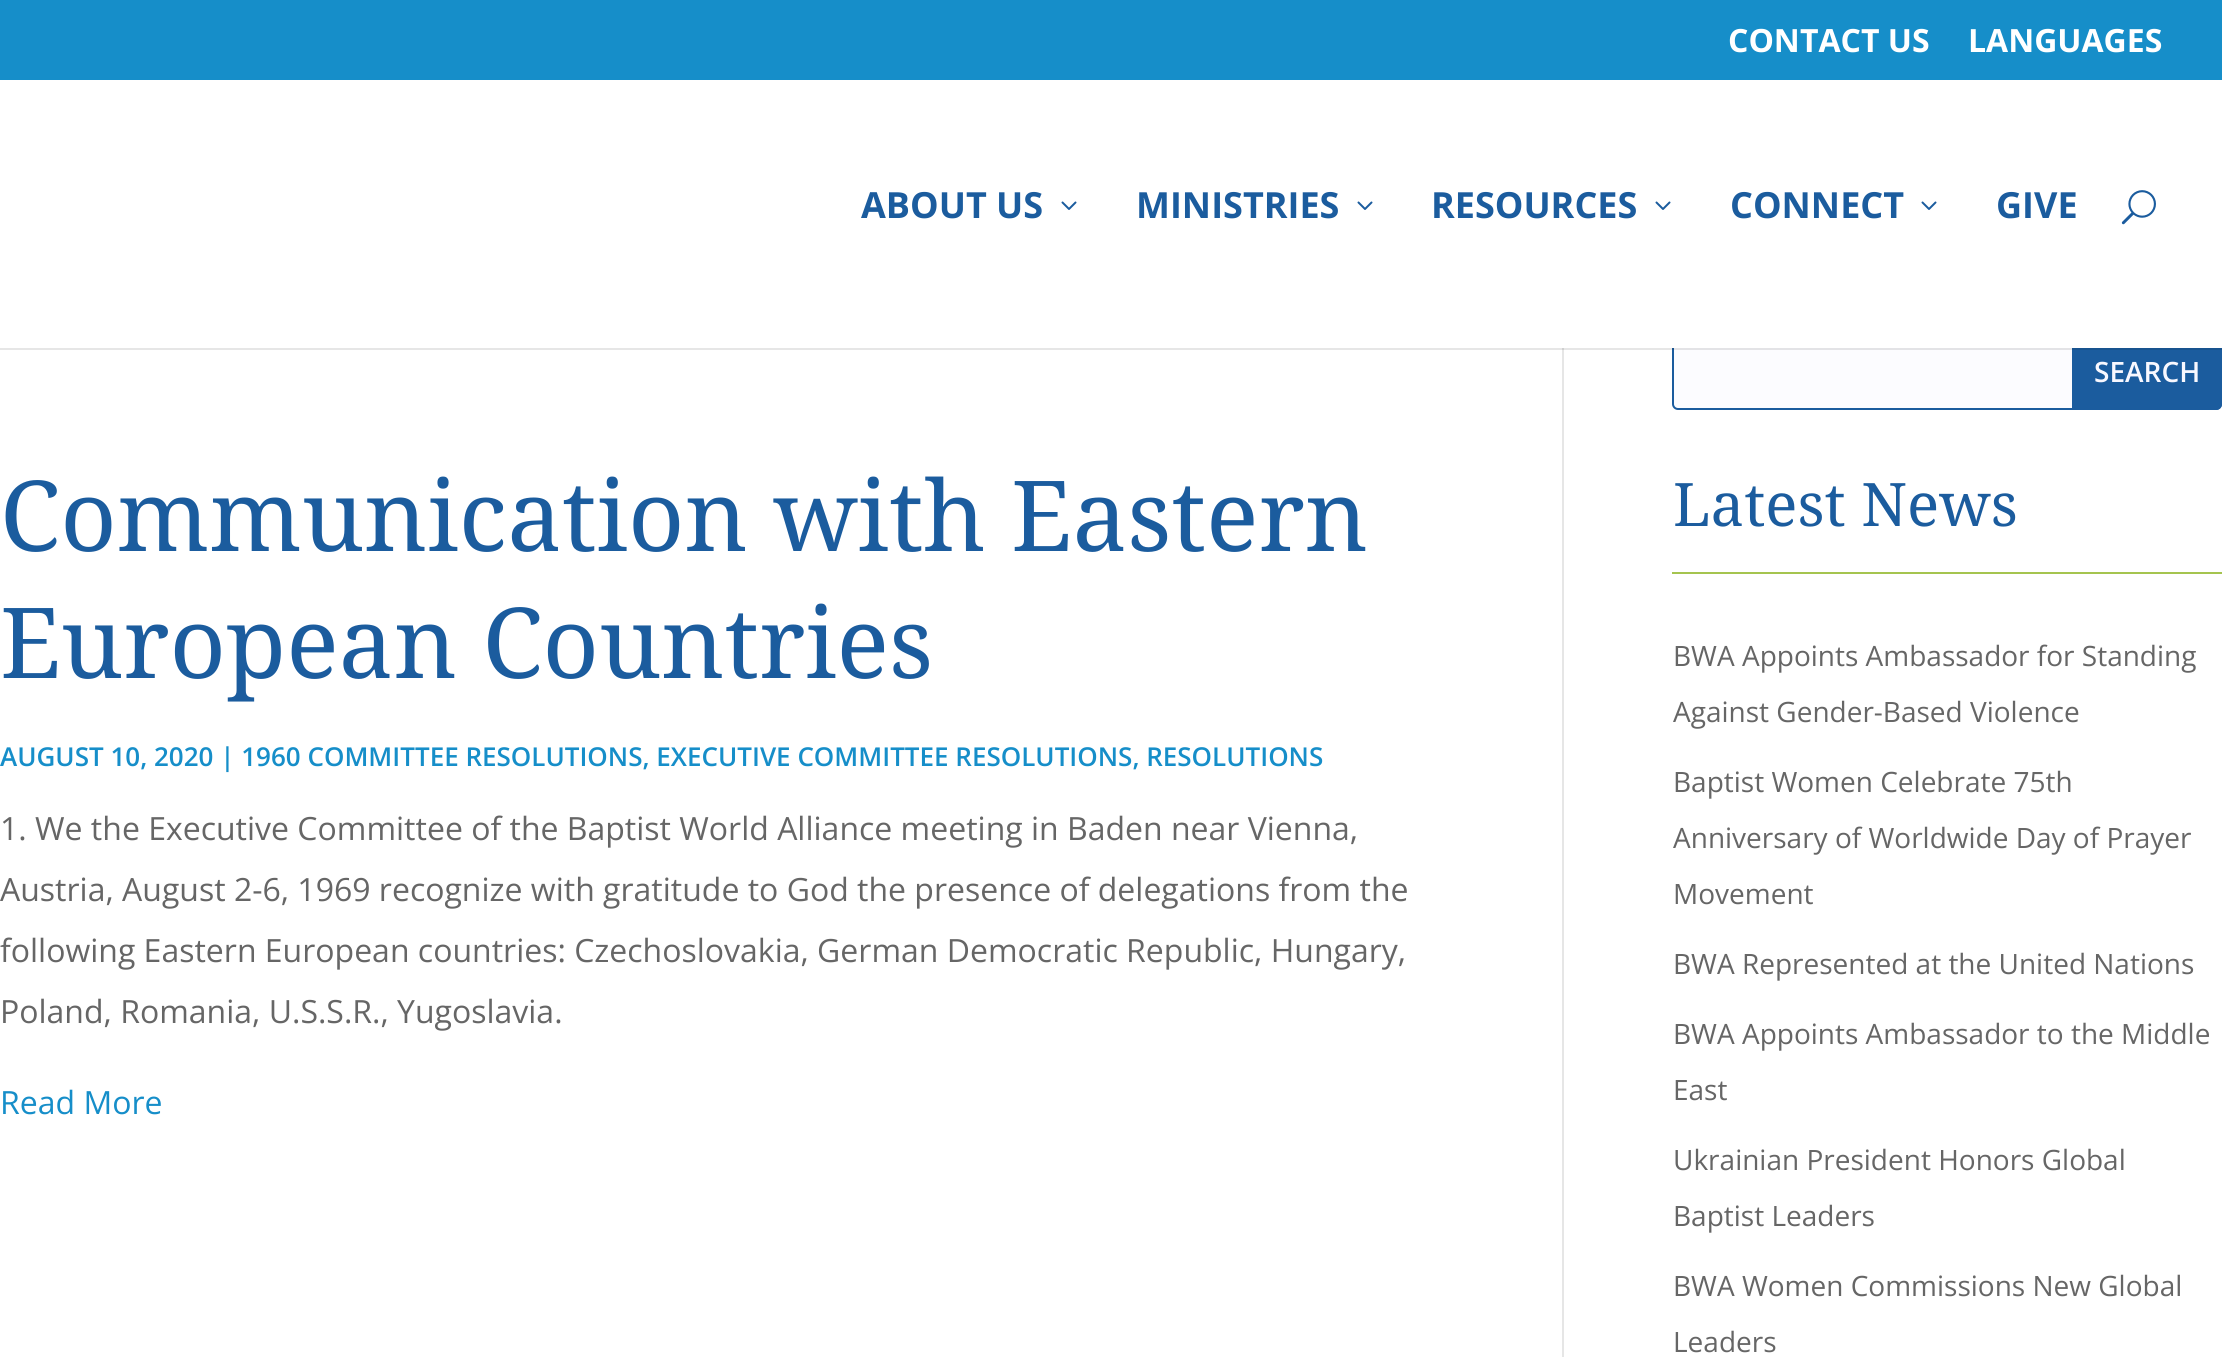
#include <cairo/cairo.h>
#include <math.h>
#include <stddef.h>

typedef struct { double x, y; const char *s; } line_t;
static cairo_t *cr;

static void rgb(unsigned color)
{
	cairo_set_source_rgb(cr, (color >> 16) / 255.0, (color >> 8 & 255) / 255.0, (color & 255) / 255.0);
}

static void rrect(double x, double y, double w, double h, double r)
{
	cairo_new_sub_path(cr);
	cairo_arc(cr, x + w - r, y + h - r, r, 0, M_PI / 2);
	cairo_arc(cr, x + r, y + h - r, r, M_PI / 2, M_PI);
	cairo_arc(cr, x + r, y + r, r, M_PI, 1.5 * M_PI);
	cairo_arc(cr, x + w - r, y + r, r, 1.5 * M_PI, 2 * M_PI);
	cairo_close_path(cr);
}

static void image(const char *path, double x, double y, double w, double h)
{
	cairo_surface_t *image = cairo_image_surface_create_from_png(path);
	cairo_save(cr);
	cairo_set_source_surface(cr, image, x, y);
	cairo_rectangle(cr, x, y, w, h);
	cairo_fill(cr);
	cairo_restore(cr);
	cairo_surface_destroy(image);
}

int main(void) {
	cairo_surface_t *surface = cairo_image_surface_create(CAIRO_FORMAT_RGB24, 2222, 1357);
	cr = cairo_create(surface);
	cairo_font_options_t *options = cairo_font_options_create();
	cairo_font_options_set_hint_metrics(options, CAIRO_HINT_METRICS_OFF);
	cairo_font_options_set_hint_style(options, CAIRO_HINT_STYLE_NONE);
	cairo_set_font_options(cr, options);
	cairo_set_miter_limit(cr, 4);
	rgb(0xffffff);
	cairo_paint(cr);
	rgb(0x168ec9);
	cairo_rectangle(cr, 0, 0, 2222, 80);
	cairo_fill(cr);
	rgb(0xe6e6e6);
	cairo_rectangle(cr, 1562, 348, 2, 1009);
	cairo_fill(cr);
	rgb(0xfcfcff);
	rrect(1673, 331, 548, 78, 5);
	cairo_fill_preserve(cr);
	rgb(0x1b5c9e);
	cairo_stroke(cr);
	cairo_new_path(cr);
	cairo_move_to(cr, 2073, 331);
	cairo_line_to(cr, 2216, 331);
	cairo_curve_to(cr, 2219, 331, 2221, 333, 2221, 336);
	cairo_line_to(cr, 2221, 404);
	cairo_curve_to(cr, 2221, 407, 2219, 409, 2216, 409);
	cairo_line_to(cr, 2073, 409);
	cairo_close_path(cr);
	cairo_fill_preserve(cr);
	cairo_stroke(cr);
	cairo_set_source_rgba(cr, 0, 0, 0, 0.1);
	cairo_rectangle(cr, 0, 348, 2222, 2);
	cairo_fill(cr);
	rgb(0xffffff);
	cairo_rectangle(cr, 1672, 330, 550, 18);
	cairo_fill(cr);
	image("img/1.png", 1061, 201, 16, 9);
	image("img/1.png", 1357, 201, 16, 9);
	image("img/1.png", 1655, 201, 16, 9);
	image("img/1.png", 1921, 201, 16, 9);
	image("img/2.png", 2121, 190, 35, 35);
	rgb(0xa5c44f);
	cairo_rectangle(cr, 1672, 572, 550, 2);
	cairo_fill(cr);
	cairo_select_font_face(cr, "Open Sans", CAIRO_FONT_SLANT_NORMAL, CAIRO_FONT_WEIGHT_BOLD);
	cairo_set_font_size(cr, 32);
	rgb(0xffffff);
	cairo_move_to(cr, 1728, 52);
	cairo_show_text(cr, "CONTACT US");
	cairo_move_to(cr, 1968, 52);
	cairo_show_text(cr, "LANGUAGES");
	cairo_set_font_size(cr, 36);
	rgb(0x1b5c9e);
	{
		static const line_t items[] = {
			{861, 218, "ABOUT US"},
			{1136, 218, "MINISTRIES"},
			{1431, 218, "RESOURCES"},
			{1730, 218, "CONNECT"},
			{1996, 218, "GIVE"},
		};
		for (size_t i = 0; i < sizeof items / sizeof *items; i++) {
			cairo_move_to(cr, items[i].x, items[i].y);
			cairo_show_text(cr, items[i].s);
		}
	}
	cairo_select_font_face(cr, "Noto Serif", CAIRO_FONT_SLANT_NORMAL, CAIRO_FONT_WEIGHT_NORMAL);
	cairo_set_font_size(cr, 98);
	cairo_move_to(cr, 0, 551);
	cairo_show_text(cr, "Communication with Eastern");
	cairo_move_to(cr, 0, 678);
	cairo_show_text(cr, "European Countries");
	cairo_select_font_face(cr, "Open Sans SemiBold", CAIRO_FONT_SLANT_NORMAL, CAIRO_FONT_WEIGHT_NORMAL);
	cairo_set_font_size(cr, 26);
	rgb(0x168ec9);
	cairo_move_to(cr, 0, 766);
	cairo_show_text(cr, "AUGUST 10, 2020 | 1960 COMMITTEE RESOLUTIONS, EXECUTIVE COMMITTEE RESOLUTIONS, RESOLUTIONS");
	cairo_select_font_face(cr, "Open Sans", CAIRO_FONT_SLANT_NORMAL, CAIRO_FONT_WEIGHT_NORMAL);
	cairo_set_font_size(cr, 32);
	rgb(0x666666);
	{
		static const line_t items[] = {
			{0, 840, "1. We the Executive Committee of the Baptist World Alliance meeting in Baden near Vienna,"},
			{0, 901, "Austria, August 2-6, 1969 recognize with gratitude to God the presence of delegations from the"},
			{0, 962, "following Eastern European countries: Czechoslovakia, German Democratic Republic, Hungary,"},
			{0, 1023, "Poland, Romania, U.S.S.R., Yugoslavia."},
		};
		for (size_t i = 0; i < sizeof items / sizeof *items; i++) {
			cairo_move_to(cr, items[i].x, items[i].y);
			cairo_show_text(cr, items[i].s);
		}
	}
	rgb(0x168ec9);
	cairo_move_to(cr, 0, 1114);
	cairo_show_text(cr, "Read More");
	cairo_select_font_face(cr, "Open Sans SemiBold", CAIRO_FONT_SLANT_NORMAL, CAIRO_FONT_WEIGHT_NORMAL);
	cairo_set_font_size(cr, 28);
	rgb(0xf8f8ff);
	cairo_move_to(cr, 2094, 382);
	cairo_show_text(cr, "SEARCH");
	cairo_select_font_face(cr, "Noto Serif", CAIRO_FONT_SLANT_NORMAL, CAIRO_FONT_WEIGHT_NORMAL);
	cairo_set_font_size(cr, 60);
	rgb(0x1b5c9e);
	cairo_move_to(cr, 1673, 526);
	cairo_show_text(cr, "Latest News");
	cairo_select_font_face(cr, "Open Sans", CAIRO_FONT_SLANT_NORMAL, CAIRO_FONT_WEIGHT_NORMAL);
	cairo_set_font_size(cr, 28);
	rgb(0x666666);
	{
		static const line_t items[] = {
			{1673, 666, "BWA Appoints Ambassador for Standing"},
			{1673, 722, "Against Gender-Based Violence"},
			{1673, 792, "Baptist Women Celebrate 75th"},
			{1673, 848, "Anniversary of Worldwide Day of Prayer"},
			{1673, 904, "Movement"},
			{1673, 974, "BWA Represented at the United Nations"},
			{1673, 1044, "BWA Appoints Ambassador to the Middle"},
			{1673, 1100, "East"},
			{1673, 1170, "Ukrainian President Honors Global"},
			{1673, 1226, "Baptist Leaders"},
			{1673, 1296, "BWA Women Commissions New Global"},
			{1673, 1352, "Leaders"},
		};
		for (size_t i = 0; i < sizeof items / sizeof *items; i++) {
			cairo_move_to(cr, items[i].x, items[i].y);
			cairo_show_text(cr, items[i].s);
		}
	}
	cairo_surface_write_to_png(surface, "page.png");
	cairo_font_options_destroy(options);
	cairo_destroy(cr);
	cairo_surface_destroy(surface);
	return 0;
}
